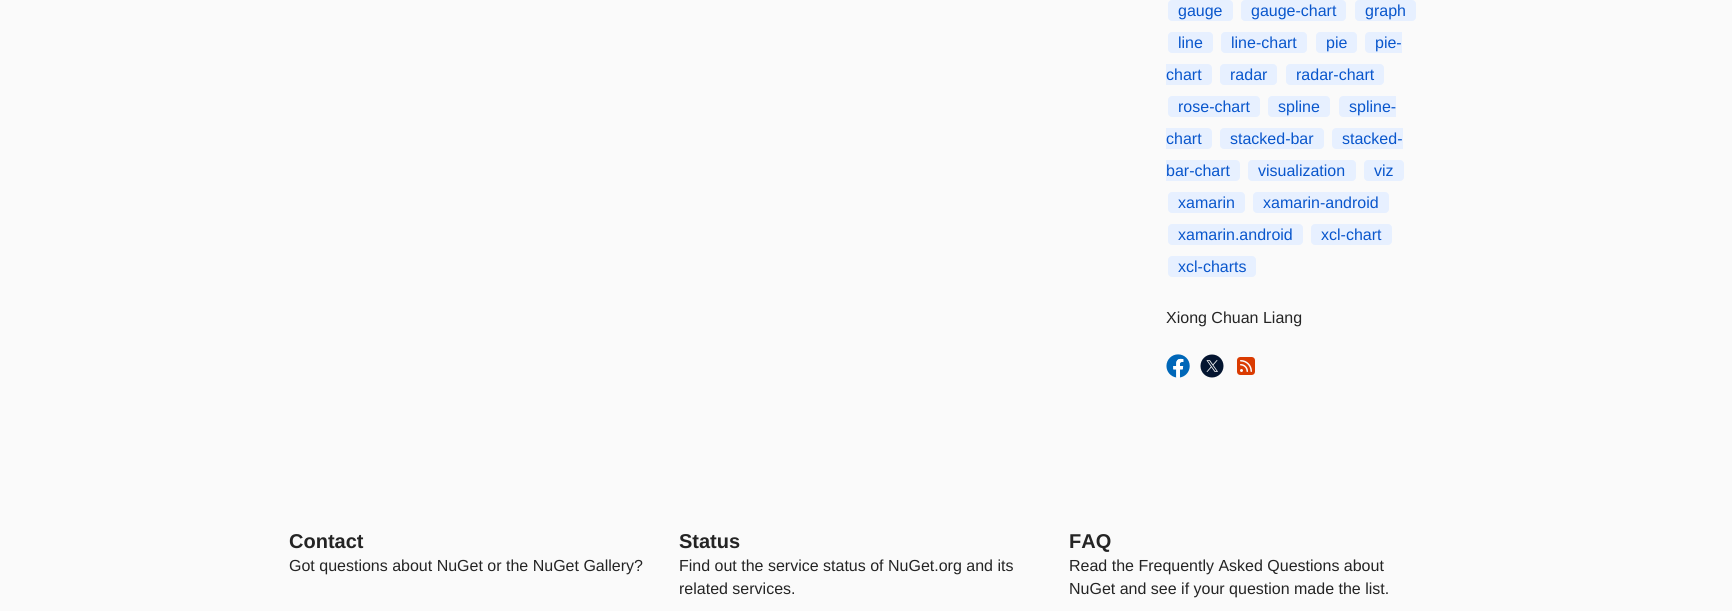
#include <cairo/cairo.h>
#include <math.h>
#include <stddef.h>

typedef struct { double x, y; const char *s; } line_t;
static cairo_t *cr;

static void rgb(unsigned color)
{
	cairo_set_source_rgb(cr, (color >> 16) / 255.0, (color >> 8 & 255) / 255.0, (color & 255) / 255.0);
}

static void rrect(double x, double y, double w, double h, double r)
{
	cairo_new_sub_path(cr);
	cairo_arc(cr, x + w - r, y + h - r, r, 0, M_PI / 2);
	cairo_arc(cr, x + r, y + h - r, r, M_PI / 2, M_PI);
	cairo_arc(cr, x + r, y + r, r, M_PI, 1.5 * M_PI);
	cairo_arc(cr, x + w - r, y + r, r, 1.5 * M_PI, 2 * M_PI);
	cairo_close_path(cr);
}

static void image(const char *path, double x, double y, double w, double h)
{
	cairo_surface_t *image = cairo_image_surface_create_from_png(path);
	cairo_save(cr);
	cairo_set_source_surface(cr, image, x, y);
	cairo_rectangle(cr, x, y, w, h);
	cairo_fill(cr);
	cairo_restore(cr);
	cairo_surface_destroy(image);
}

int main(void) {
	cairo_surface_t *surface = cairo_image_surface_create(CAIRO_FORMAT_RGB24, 1732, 611);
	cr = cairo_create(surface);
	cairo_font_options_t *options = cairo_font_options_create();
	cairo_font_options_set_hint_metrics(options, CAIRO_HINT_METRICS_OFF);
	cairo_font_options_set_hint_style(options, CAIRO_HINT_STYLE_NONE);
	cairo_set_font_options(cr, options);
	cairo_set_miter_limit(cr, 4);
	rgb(0xfafafa);
	cairo_paint(cr);
	rgb(0xe7f0ff);
	rrect(1168, 0, 65, 21, 4);
	cairo_fill(cr);
	rrect(1241, 0, 105, 21, 4);
	cairo_fill(cr);
	rrect(1355, 0, 61, 21, 4);
	cairo_fill(cr);
	rrect(1168, 32, 45, 21, 4);
	cairo_fill(cr);
	rrect(1221, 32, 86, 21, 4);
	cairo_fill(cr);
	rrect(1316, 32, 41, 21, 4);
	cairo_fill(cr);
	cairo_new_path(cr);
	cairo_move_to(cr, 1369, 32);
	cairo_line_to(cr, 1402, 32);
	cairo_line_to(cr, 1402, 53);
	cairo_line_to(cr, 1369, 53);
	cairo_curve_to(cr, 1367, 53, 1365, 51, 1365, 49);
	cairo_line_to(cr, 1365, 36);
	cairo_curve_to(cr, 1365, 34, 1367, 32, 1369, 32);
	cairo_close_path(cr);
	cairo_fill(cr);
	cairo_new_path(cr);
	cairo_move_to(cr, 1166, 64);
	cairo_line_to(cr, 1208, 64);
	cairo_curve_to(cr, 1210, 64, 1212, 66, 1212, 68);
	cairo_line_to(cr, 1212, 81);
	cairo_curve_to(cr, 1212, 83, 1210, 85, 1208, 85);
	cairo_line_to(cr, 1166, 85);
	cairo_close_path(cr);
	cairo_fill(cr);
	rrect(1220, 64, 57, 21, 4);
	cairo_fill(cr);
	rrect(1286, 64, 98, 21, 4);
	cairo_fill(cr);
	rrect(1168, 96, 92, 21, 4);
	cairo_fill(cr);
	rrect(1268, 96, 62, 21, 4);
	cairo_fill(cr);
	cairo_new_path(cr);
	cairo_move_to(cr, 1343, 96);
	cairo_line_to(cr, 1396, 96);
	cairo_line_to(cr, 1396, 117);
	cairo_line_to(cr, 1343, 117);
	cairo_curve_to(cr, 1341, 117, 1339, 115, 1339, 113);
	cairo_line_to(cr, 1339, 100);
	cairo_curve_to(cr, 1339, 98, 1341, 96, 1343, 96);
	cairo_close_path(cr);
	cairo_fill(cr);
	cairo_new_path(cr);
	cairo_move_to(cr, 1166, 128);
	cairo_line_to(cr, 1208, 128);
	cairo_curve_to(cr, 1210, 128, 1212, 130, 1212, 132);
	cairo_line_to(cr, 1212, 145);
	cairo_curve_to(cr, 1212, 147, 1210, 149, 1208, 149);
	cairo_line_to(cr, 1166, 149);
	cairo_close_path(cr);
	cairo_fill(cr);
	rrect(1220, 128, 104, 21, 4);
	cairo_fill(cr);
	cairo_new_path(cr);
	cairo_move_to(cr, 1336, 128);
	cairo_line_to(cr, 1403, 128);
	cairo_line_to(cr, 1403, 149);
	cairo_line_to(cr, 1336, 149);
	cairo_curve_to(cr, 1334, 149, 1332, 147, 1332, 145);
	cairo_line_to(cr, 1332, 132);
	cairo_curve_to(cr, 1332, 130, 1334, 128, 1336, 128);
	cairo_close_path(cr);
	cairo_fill(cr);
	cairo_new_path(cr);
	cairo_move_to(cr, 1166, 160);
	cairo_line_to(cr, 1236, 160);
	cairo_curve_to(cr, 1238, 160, 1240, 162, 1240, 164);
	cairo_line_to(cr, 1240, 177);
	cairo_curve_to(cr, 1240, 179, 1238, 181, 1236, 181);
	cairo_line_to(cr, 1166, 181);
	cairo_close_path(cr);
	cairo_fill(cr);
	rrect(1248, 160, 108, 21, 4);
	cairo_fill(cr);
	rrect(1364, 160, 40, 21, 4);
	cairo_fill(cr);
	rrect(1168, 192, 77, 21, 4);
	cairo_fill(cr);
	rrect(1253, 192, 136, 21, 4);
	cairo_fill(cr);
	rrect(1168, 224, 135, 21, 4);
	cairo_fill(cr);
	rrect(1311, 224, 81, 21, 4);
	cairo_fill(cr);
	rrect(1168, 256, 88, 21, 4);
	cairo_fill(cr);
	image("img/1.png", 1166, 354, 24, 24);
	image("img/2.png", 1200, 354, 24, 24);
	image("img/3.png", 1237, 357, 18, 18);
	cairo_select_font_face(cr, "Liberation Sans", CAIRO_FONT_SLANT_NORMAL, CAIRO_FONT_WEIGHT_NORMAL);
	cairo_set_font_size(cr, 16);
	rgb(0x0956cc);
	{
		static const line_t items[] = {
			{1178, 16, "gauge"},
			{1251, 16, "gauge-chart"},
			{1365, 16, "graph"},
			{1178, 48, "line"},
			{1231, 48, "line-chart"},
			{1326, 48, "pie"},
			{1375, 48, "pie-"},
			{1166, 80, "chart"},
			{1230, 80, "radar"},
			{1296, 80, "radar-chart"},
			{1178, 112, "rose-chart"},
			{1278, 112, "spline"},
			{1349, 112, "spline-"},
			{1166, 144, "chart"},
			{1230, 144, "stacked-bar"},
			{1342, 144, "stacked-"},
			{1166, 176, "bar-chart"},
			{1258, 176, "visualization"},
			{1374, 176, "viz"},
			{1178, 208, "xamarin"},
			{1263, 208, "xamarin-android"},
			{1178, 240, "xamarin.android"},
			{1321, 240, "xcl-chart"},
			{1178, 272, "xcl-charts"},
		};
		for (size_t i = 0; i < sizeof items / sizeof *items; i++) {
			cairo_move_to(cr, items[i].x, items[i].y);
			cairo_show_text(cr, items[i].s);
		}
	}
	rgb(0x242424);
	cairo_move_to(cr, 1166, 323);
	cairo_show_text(cr, "Xiong Chuan Liang");
	cairo_select_font_face(cr, "Liberation Sans", CAIRO_FONT_SLANT_NORMAL, CAIRO_FONT_WEIGHT_BOLD);
	cairo_set_font_size(cr, 20);
	cairo_move_to(cr, 289, 548);
	cairo_show_text(cr, "Contact");
	cairo_select_font_face(cr, "Liberation Sans", CAIRO_FONT_SLANT_NORMAL, CAIRO_FONT_WEIGHT_NORMAL);
	cairo_set_font_size(cr, 16);
	cairo_move_to(cr, 289, 571);
	cairo_show_text(cr, "Got questions about NuGet or the NuGet Gallery?");
	cairo_select_font_face(cr, "Liberation Sans", CAIRO_FONT_SLANT_NORMAL, CAIRO_FONT_WEIGHT_BOLD);
	cairo_set_font_size(cr, 20);
	cairo_move_to(cr, 679, 548);
	cairo_show_text(cr, "Status");
	cairo_select_font_face(cr, "Liberation Sans", CAIRO_FONT_SLANT_NORMAL, CAIRO_FONT_WEIGHT_NORMAL);
	cairo_set_font_size(cr, 16);
	cairo_move_to(cr, 679, 571);
	cairo_show_text(cr, "Find out the service status of NuGet.org and its");
	cairo_move_to(cr, 679, 594);
	cairo_show_text(cr, "related services.");
	cairo_select_font_face(cr, "Liberation Sans", CAIRO_FONT_SLANT_NORMAL, CAIRO_FONT_WEIGHT_BOLD);
	cairo_set_font_size(cr, 20);
	cairo_move_to(cr, 1069, 548);
	cairo_show_text(cr, "FAQ");
	cairo_select_font_face(cr, "Liberation Sans", CAIRO_FONT_SLANT_NORMAL, CAIRO_FONT_WEIGHT_NORMAL);
	cairo_set_font_size(cr, 16);
	cairo_move_to(cr, 1069, 571);
	cairo_show_text(cr, "Read the Frequently Asked Questions about");
	cairo_move_to(cr, 1069, 594);
	cairo_show_text(cr, "NuGet and see if your question made the list.");
	cairo_surface_write_to_png(surface, "page.png");
	cairo_font_options_destroy(options);
	cairo_destroy(cr);
	cairo_surface_destroy(surface);
	return 0;
}
